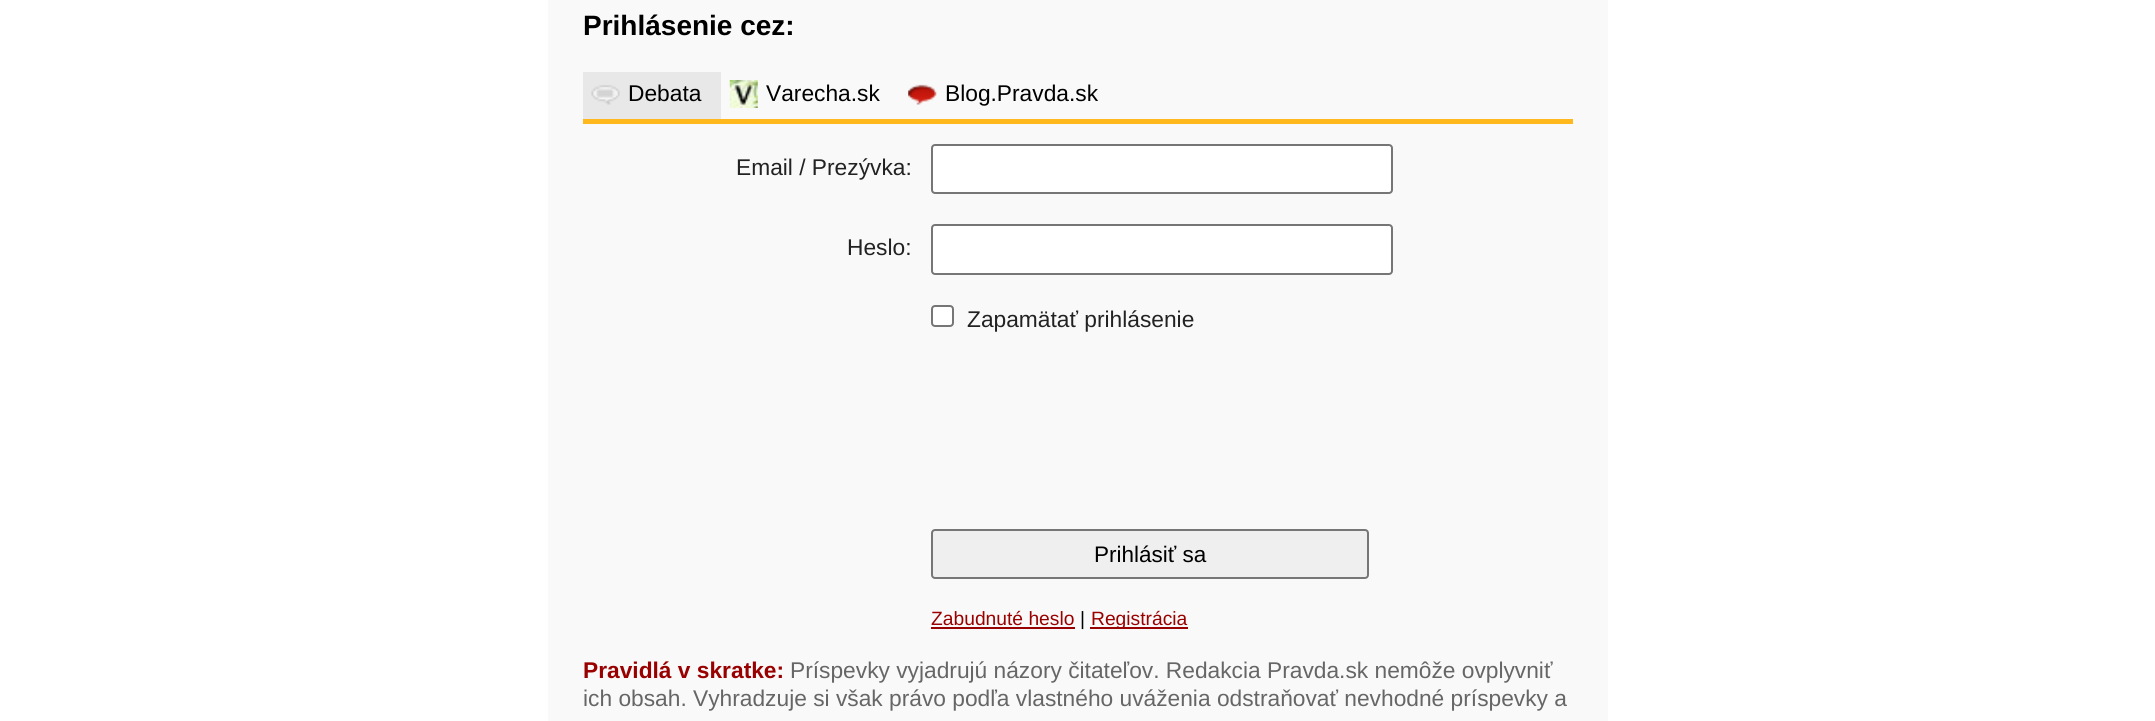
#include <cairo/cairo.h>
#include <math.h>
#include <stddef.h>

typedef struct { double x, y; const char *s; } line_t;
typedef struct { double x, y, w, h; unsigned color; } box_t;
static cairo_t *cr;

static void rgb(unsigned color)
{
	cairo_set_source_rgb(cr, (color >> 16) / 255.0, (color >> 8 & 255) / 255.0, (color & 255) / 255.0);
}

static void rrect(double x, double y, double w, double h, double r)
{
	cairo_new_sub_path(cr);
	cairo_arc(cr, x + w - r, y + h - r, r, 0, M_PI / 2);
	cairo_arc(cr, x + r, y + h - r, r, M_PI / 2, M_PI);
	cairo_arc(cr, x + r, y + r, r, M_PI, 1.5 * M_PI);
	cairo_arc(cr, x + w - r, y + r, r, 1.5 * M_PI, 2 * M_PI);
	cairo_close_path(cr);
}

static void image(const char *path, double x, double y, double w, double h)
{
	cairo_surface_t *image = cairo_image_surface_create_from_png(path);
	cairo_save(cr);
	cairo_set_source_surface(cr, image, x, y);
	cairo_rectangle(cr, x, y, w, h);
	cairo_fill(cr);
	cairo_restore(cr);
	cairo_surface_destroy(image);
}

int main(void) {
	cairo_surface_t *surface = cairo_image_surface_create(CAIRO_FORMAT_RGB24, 2155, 721);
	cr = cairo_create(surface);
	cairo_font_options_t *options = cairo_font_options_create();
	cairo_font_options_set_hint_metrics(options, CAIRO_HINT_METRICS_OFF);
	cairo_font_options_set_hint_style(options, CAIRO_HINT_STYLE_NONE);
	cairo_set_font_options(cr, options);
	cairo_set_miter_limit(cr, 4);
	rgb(0xffffff);
	cairo_paint(cr);
	{
		static const box_t items[] = {
			{548, 0, 1060, 721, 0xf9f9f9},
			{583, 119, 990, 5, 0xffb81e},
			{583, 72, 138, 47, 0xe8e8e8},
		};
		for (size_t i = 0; i < sizeof items / sizeof *items; i++) {
			rgb(items[i].color);
			cairo_rectangle(cr, items[i].x, items[i].y, items[i].w, items[i].h);
			cairo_fill(cr);
		}
	}
	image("img/1.png", 591, 85, 29, 20);
	image("img/2.png", 729, 80, 29, 28);
	image("img/3.png", 908, 84, 29, 21);
	rgb(0xffffff);
	rrect(932, 145, 460, 48, 3);
	cairo_fill_preserve(cr);
	rgb(0x767676);
	cairo_stroke(cr);
	rgb(0xffffff);
	rrect(932, 225, 460, 49, 3);
	cairo_fill_preserve(cr);
	rgb(0x767676);
	cairo_stroke(cr);
	rgb(0xffffff);
	rrect(932, 306, 21, 20, 3);
	cairo_fill_preserve(cr);
	rgb(0x767676);
	cairo_stroke(cr);
	rgb(0xefefef);
	rrect(932, 530, 436, 48, 3);
	cairo_fill_preserve(cr);
	rgb(0x767676);
	cairo_stroke(cr);
	rgb(0x990000);
	cairo_rectangle(cr, 931, 627, 144, 2);
	cairo_fill(cr);
	cairo_rectangle(cr, 1090, 627, 98, 2);
	cairo_fill(cr);
	cairo_select_font_face(cr, "Liberation Sans", CAIRO_FONT_SLANT_NORMAL, CAIRO_FONT_WEIGHT_BOLD);
	cairo_set_font_size(cr, 28);
	rgb(0x000000);
	cairo_move_to(cr, 583, 35);
	cairo_show_text(cr, "Prihlásenie cez:");
	cairo_select_font_face(cr, "Liberation Sans", CAIRO_FONT_SLANT_NORMAL, CAIRO_FONT_WEIGHT_NORMAL);
	cairo_set_font_size(cr, 22.75);
	{
		static const line_t items[] = {
			{628, 101, "Debata"},
			{766, 101, "Varecha.sk"},
			{945, 101, "Blog.Pravda.sk"},
		};
		for (size_t i = 0; i < sizeof items / sizeof *items; i++) {
			cairo_move_to(cr, items[i].x, items[i].y);
			cairo_show_text(cr, items[i].s);
		}
	}
	rgb(0x222222);
	{
		static const line_t items[] = {
			{736, 175, "Email / Prezývka:"},
			{847, 255, "Heslo:"},
			{967, 327, "Zapamätať prihlásenie"},
		};
		for (size_t i = 0; i < sizeof items / sizeof *items; i++) {
			cairo_move_to(cr, items[i].x, items[i].y);
			cairo_show_text(cr, items[i].s);
		}
	}
	cairo_set_font_size(cr, 22.5);
	rgb(0x000000);
	cairo_move_to(cr, 1094, 562);
	cairo_show_text(cr, "Prihlásiť sa");
	cairo_set_font_size(cr, 19.25);
	rgb(0x990000);
	cairo_move_to(cr, 931, 625);
	cairo_show_text(cr, "Zabudnuté heslo");
	rgb(0x000000);
	cairo_move_to(cr, 1080, 625);
	cairo_show_text(cr, "|");
	rgb(0x990000);
	cairo_move_to(cr, 1091, 625);
	cairo_show_text(cr, "Registrácia");
	cairo_select_font_face(cr, "Liberation Sans", CAIRO_FONT_SLANT_NORMAL, CAIRO_FONT_WEIGHT_BOLD);
	cairo_set_font_size(cr, 22.75);
	cairo_move_to(cr, 583, 678);
	cairo_show_text(cr, "Pravidlá v skratke:");
	cairo_select_font_face(cr, "Liberation Sans", CAIRO_FONT_SLANT_NORMAL, CAIRO_FONT_WEIGHT_NORMAL);
	rgb(0x666666);
	cairo_move_to(cr, 790, 678);
	cairo_show_text(cr, "Príspevky vyjadrujú názory čitateľov. Redakcia Pravda.sk nemôže ovplyvniť");
	cairo_move_to(cr, 583, 706);
	cairo_show_text(cr, "ich obsah. Vyhradzuje si však právo podľa vlastného uváženia odstraňovať nevhodné príspevky a");
	cairo_surface_write_to_png(surface, "page.png");
	cairo_font_options_destroy(options);
	cairo_destroy(cr);
	cairo_surface_destroy(surface);
	return 0;
}
